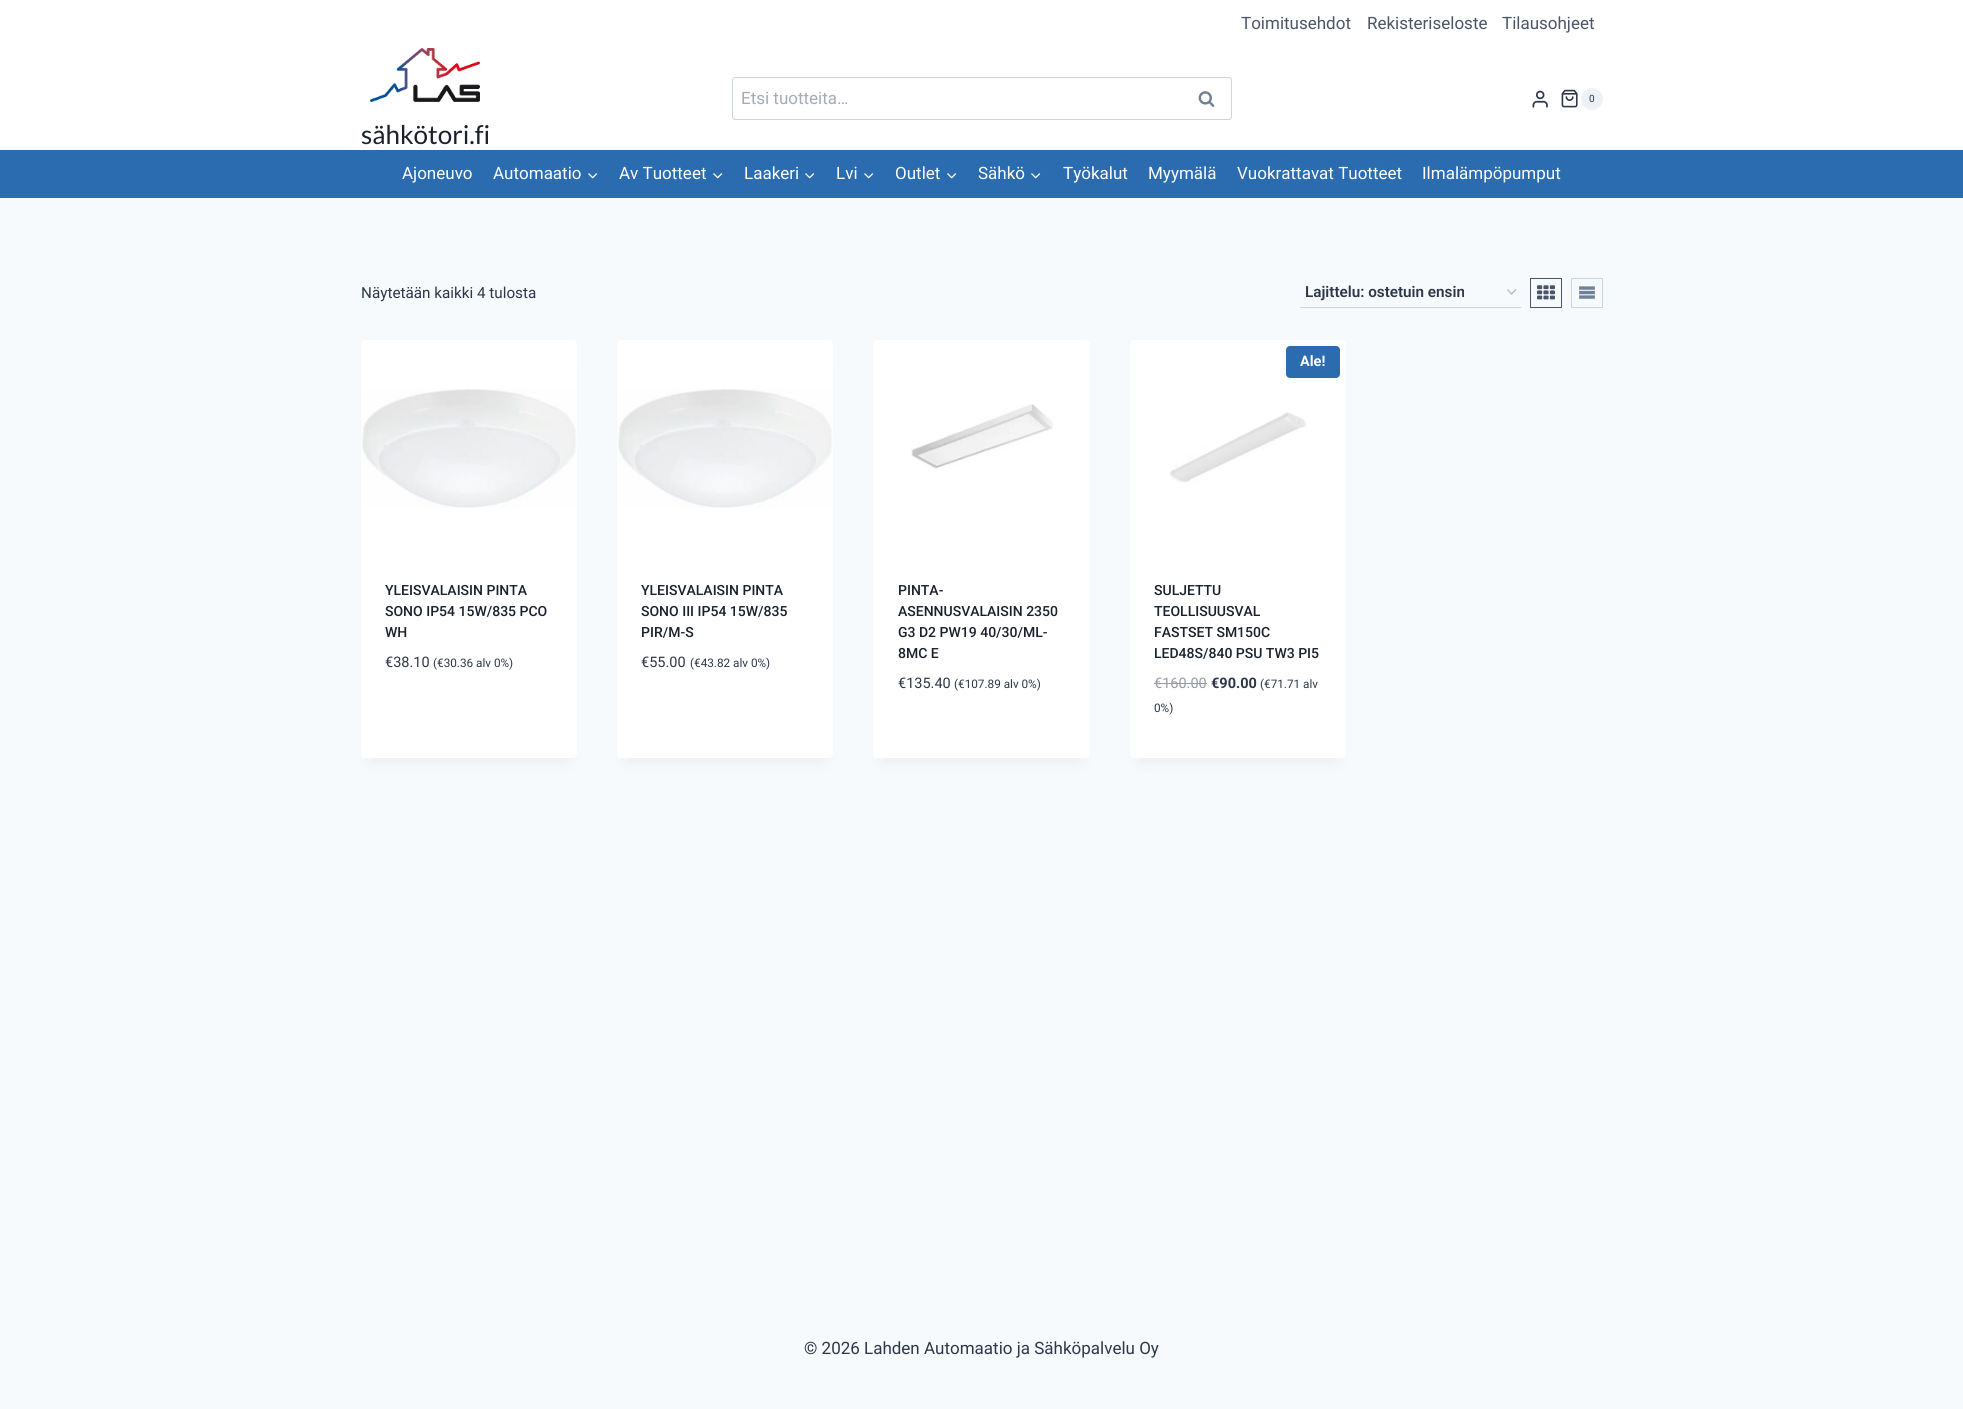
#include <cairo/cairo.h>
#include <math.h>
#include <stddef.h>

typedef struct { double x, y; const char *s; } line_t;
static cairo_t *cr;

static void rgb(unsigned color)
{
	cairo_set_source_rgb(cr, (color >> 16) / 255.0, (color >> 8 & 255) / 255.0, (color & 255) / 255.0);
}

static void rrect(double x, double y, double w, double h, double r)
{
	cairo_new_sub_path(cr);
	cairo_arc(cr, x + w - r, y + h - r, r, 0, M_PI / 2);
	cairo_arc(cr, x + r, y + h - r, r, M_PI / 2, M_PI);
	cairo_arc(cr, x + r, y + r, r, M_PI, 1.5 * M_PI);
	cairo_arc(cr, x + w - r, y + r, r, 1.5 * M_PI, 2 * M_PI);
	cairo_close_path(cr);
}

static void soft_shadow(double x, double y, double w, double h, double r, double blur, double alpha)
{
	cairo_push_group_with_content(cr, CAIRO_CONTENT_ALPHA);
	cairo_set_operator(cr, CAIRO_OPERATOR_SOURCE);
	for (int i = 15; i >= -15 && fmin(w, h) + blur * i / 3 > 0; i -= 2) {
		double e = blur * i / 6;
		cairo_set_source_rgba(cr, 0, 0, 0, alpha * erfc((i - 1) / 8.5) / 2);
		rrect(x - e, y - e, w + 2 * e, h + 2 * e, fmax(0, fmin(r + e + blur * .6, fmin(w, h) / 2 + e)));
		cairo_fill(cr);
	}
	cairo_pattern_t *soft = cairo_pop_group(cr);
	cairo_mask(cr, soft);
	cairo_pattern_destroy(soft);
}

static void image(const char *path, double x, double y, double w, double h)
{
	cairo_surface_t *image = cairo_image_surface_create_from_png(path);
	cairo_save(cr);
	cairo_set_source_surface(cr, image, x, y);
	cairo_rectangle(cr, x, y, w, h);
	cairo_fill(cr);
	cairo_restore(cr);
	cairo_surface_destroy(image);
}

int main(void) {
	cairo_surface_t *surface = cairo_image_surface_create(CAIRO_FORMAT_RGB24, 1963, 1409);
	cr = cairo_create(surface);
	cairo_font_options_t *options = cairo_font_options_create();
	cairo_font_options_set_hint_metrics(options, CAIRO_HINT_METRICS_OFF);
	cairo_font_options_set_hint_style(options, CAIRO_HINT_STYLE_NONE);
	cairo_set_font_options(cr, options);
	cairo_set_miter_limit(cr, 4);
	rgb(0xf7fafc);
	cairo_paint(cr);
	rgb(0xffffff);
	cairo_rectangle(cr, 0, 0, 1963, 150);
	cairo_fill(cr);
	rrect(732.5, 77.5, 499, 42, 2.5);
	rgb(0xcbd5e0);
	cairo_set_line_width(cr, 1);
	cairo_stroke(cr);
	image("img/1.png", 1198, 91, 17, 16);
	image("img/2.png", 1532, 90, 16, 18);
	image("img/3.png", 1561, 89, 17, 19);
	rgb(0xedf2f7);
	cairo_arc(cr, 1592, 99, 11, 0, 2 * M_PI);
	cairo_fill(cr);
	image("img/4.png", 370, 48, 110, 54);
	rgb(0x2b6cb0);
	cairo_rectangle(cr, 0, 150, 1963, 48);
	cairo_fill(cr);
	image("img/5.png", 588, 173, 10, 6);
	image("img/5.png", 713, 173, 10, 6);
	image("img/5.png", 805, 173, 10, 6);
	image("img/5.png", 864, 173, 10, 6);
	image("img/5.png", 947, 173, 10, 6);
	image("img/5.png", 1031, 173, 10, 6);
	cairo_new_path(cr);
	cairo_move_to(cr, 1507.5, 289.5);
	cairo_line_to(cr, 1511.5, 294);
	cairo_line_to(cr, 1516, 289.5);
	rgb(0xbbbbbb);
	cairo_set_line_width(cr, 1.4);
	cairo_stroke(cr);
	rgb(0xcbd5e0);
	cairo_rectangle(cr, 1300, 307, 221, 1);
	cairo_fill(cr);
	cairo_rectangle(cr, 1530.5, 278.5, 31, 29);
	rgb(0x4a5568);
	cairo_set_line_width(cr, 1);
	cairo_stroke(cr);
	image("img/6.png", 1537, 285, 18, 15);
	cairo_rectangle(cr, 1571.5, 278.5, 31, 29);
	rgb(0xcbd5e0);
	cairo_stroke(cr);
	image("img/7.png", 1579, 286, 16, 13);
	rgb(0x000000);
	soft_shadow(371, 365, 196, 398, 0, 7.5, 0.05);
	rgb(0xffffff);
	rrect(361, 340, 216, 418, 4);
	cairo_fill(cr);
	image("img/8.png", 361, 389, 216, 119);
	rgb(0x000000);
	soft_shadow(627, 365, 196, 398, 0, 7.5, 0.05);
	rgb(0xffffff);
	rrect(617, 340, 216, 418, 4);
	cairo_fill(cr);
	image("img/9.png", 617, 389, 216, 119);
	rgb(0x000000);
	soft_shadow(883, 365, 197, 398, 0, 7.5, 0.05);
	rgb(0xffffff);
	rrect(873, 340, 217, 418, 4);
	cairo_fill(cr);
	image("img/10.png", 911, 404, 142, 65);
	rgb(0x000000);
	soft_shadow(1140, 365, 196, 398, 0, 7.5, 0.05);
	rgb(0xffffff);
	rrect(1130, 340, 216, 418, 4);
	cairo_fill(cr);
	rgb(0x2b6cb0);
	rrect(1286, 346, 54, 32, 4);
	cairo_fill(cr);
	image("img/11.png", 1170, 412, 137, 71);
	rgb(0x969ba4);
	cairo_rectangle(cr, 1154, 683, 53, 1);
	cairo_fill(cr);
	cairo_select_font_face(cr, "Roboto", CAIRO_FONT_SLANT_NORMAL, CAIRO_FONT_WEIGHT_NORMAL);
	cairo_set_font_size(cr, 17);
	rgb(0x4a5568);
	{
		static const line_t items[] = {
			{1241, 29, "Toimitusehdot"},
			{1367, 29, "Rekisteriseloste"},
			{1502, 29, "Tilausohjeet"},
		};
		for (size_t i = 0; i < sizeof items / sizeof *items; i++) {
			cairo_move_to(cr, items[i].x, items[i].y);
			cairo_show_text(cr, items[i].s);
		}
	}
	rgb(0xa5aab4);
	cairo_move_to(cr, 741, 104);
	cairo_show_text(cr, "Etsi tuotteita…");
	cairo_set_font_size(cr, 10);
	rgb(0x2d3748);
	cairo_move_to(cr, 1589, 102);
	cairo_show_text(cr, "0");
	cairo_select_font_face(cr, "Lato", CAIRO_FONT_SLANT_NORMAL, CAIRO_FONT_WEIGHT_NORMAL);
	cairo_set_font_size(cr, 26);
	rgb(0x1a202c);
	cairo_move_to(cr, 361, 144);
	cairo_show_text(cr, "sähkötori.fi");
	cairo_select_font_face(cr, "Roboto", CAIRO_FONT_SLANT_NORMAL, CAIRO_FONT_WEIGHT_NORMAL);
	cairo_set_font_size(cr, 17);
	rgb(0xffffff);
	{
		static const line_t items[] = {
			{402, 179, "Ajoneuvo"},
			{493, 179, "Automaatio"},
			{619, 179, "Av Tuotteet"},
			{744, 179, "Laakeri"},
			{836, 179, "Lvi"},
			{895, 179, "Outlet"},
			{978, 179, "Sähkö"},
			{1063, 179, "Työkalut"},
			{1148, 179, "Myymälä"},
			{1237, 179, "Vuokrattavat Tuotteet"},
			{1422, 179, "Ilmalämpöpumput"},
		};
		for (size_t i = 0; i < sizeof items / sizeof *items; i++) {
			cairo_move_to(cr, items[i].x, items[i].y);
			cairo_show_text(cr, items[i].s);
		}
	}
	cairo_set_font_size(cr, 15.25);
	rgb(0x2d3748);
	cairo_move_to(cr, 361, 298);
	cairo_show_text(cr, "Näytetään kaikki 4 tulosta");
	cairo_select_font_face(cr, "Roboto SemiBold", CAIRO_FONT_SLANT_NORMAL, CAIRO_FONT_WEIGHT_NORMAL);
	cairo_move_to(cr, 1305, 297);
	cairo_show_text(cr, "Lajittelu: ostetuin ensin");
	cairo_select_font_face(cr, "Roboto Medium", CAIRO_FONT_SLANT_NORMAL, CAIRO_FONT_WEIGHT_NORMAL);
	cairo_set_font_size(cr, 14);
	rgb(0x1a202c);
	{
		static const line_t items[] = {
			{385, 595, "YLEISVALAISIN PINTA"},
			{385, 616, "SONO IP54 15W/835 PCO"},
			{385, 637, "WH"},
		};
		for (size_t i = 0; i < sizeof items / sizeof *items; i++) {
			cairo_move_to(cr, items[i].x, items[i].y);
			cairo_show_text(cr, items[i].s);
		}
	}
	cairo_select_font_face(cr, "Roboto", CAIRO_FONT_SLANT_NORMAL, CAIRO_FONT_WEIGHT_NORMAL);
	cairo_set_font_size(cr, 14.5);
	rgb(0x2d3748);
	cairo_move_to(cr, 385, 667);
	cairo_show_text(cr, "€38.10");
	cairo_set_font_size(cr, 11.75);
	cairo_move_to(cr, 433, 667);
	cairo_show_text(cr, "(€30.36 alv 0%)");
	cairo_select_font_face(cr, "Roboto Medium", CAIRO_FONT_SLANT_NORMAL, CAIRO_FONT_WEIGHT_NORMAL);
	cairo_set_font_size(cr, 14);
	rgb(0x1a202c);
	{
		static const line_t items[] = {
			{641, 595, "YLEISVALAISIN PINTA"},
			{641, 616, "SONO III IP54 15W/835"},
			{641, 637, "PIR/M-S"},
		};
		for (size_t i = 0; i < sizeof items / sizeof *items; i++) {
			cairo_move_to(cr, items[i].x, items[i].y);
			cairo_show_text(cr, items[i].s);
		}
	}
	cairo_select_font_face(cr, "Roboto", CAIRO_FONT_SLANT_NORMAL, CAIRO_FONT_WEIGHT_NORMAL);
	cairo_set_font_size(cr, 14.5);
	rgb(0x2d3748);
	cairo_move_to(cr, 641, 667);
	cairo_show_text(cr, "€55.00");
	cairo_set_font_size(cr, 11.75);
	cairo_move_to(cr, 690, 667);
	cairo_show_text(cr, "(€43.82 alv 0%)");
	cairo_select_font_face(cr, "Roboto Medium", CAIRO_FONT_SLANT_NORMAL, CAIRO_FONT_WEIGHT_NORMAL);
	cairo_set_font_size(cr, 14);
	rgb(0x1a202c);
	{
		static const line_t items[] = {
			{898, 595, "PINTA-"},
			{898, 616, "ASENNUSVALAISIN 2350"},
			{898, 637, "G3 D2 PW19 40/30/ML-"},
			{898, 658, "8MC E"},
		};
		for (size_t i = 0; i < sizeof items / sizeof *items; i++) {
			cairo_move_to(cr, items[i].x, items[i].y);
			cairo_show_text(cr, items[i].s);
		}
	}
	cairo_select_font_face(cr, "Roboto", CAIRO_FONT_SLANT_NORMAL, CAIRO_FONT_WEIGHT_NORMAL);
	cairo_set_font_size(cr, 14.5);
	rgb(0x2d3748);
	cairo_move_to(cr, 898, 688);
	cairo_show_text(cr, "€135.40");
	cairo_set_font_size(cr, 11.75);
	cairo_move_to(cr, 954, 688);
	cairo_show_text(cr, "(€107.89 alv 0%)");
	cairo_select_font_face(cr, "Roboto", CAIRO_FONT_SLANT_NORMAL, CAIRO_FONT_WEIGHT_BOLD);
	cairo_set_font_size(cr, 14.5);
	rgb(0xffffff);
	cairo_move_to(cr, 1300, 366);
	cairo_show_text(cr, "Ale!");
	cairo_select_font_face(cr, "Roboto Medium", CAIRO_FONT_SLANT_NORMAL, CAIRO_FONT_WEIGHT_NORMAL);
	cairo_set_font_size(cr, 14);
	rgb(0x1a202c);
	{
		static const line_t items[] = {
			{1154, 595, "SULJETTU"},
			{1154, 616, "TEOLLISUUSVAL"},
			{1154, 637, "FASTSET SM150C"},
			{1154, 658, "LED48S/840 PSU TW3 PI5"},
		};
		for (size_t i = 0; i < sizeof items / sizeof *items; i++) {
			cairo_move_to(cr, items[i].x, items[i].y);
			cairo_show_text(cr, items[i].s);
		}
	}
	cairo_select_font_face(cr, "Roboto", CAIRO_FONT_SLANT_NORMAL, CAIRO_FONT_WEIGHT_NORMAL);
	cairo_set_font_size(cr, 14.5);
	rgb(0x969ba4);
	cairo_move_to(cr, 1154, 688);
	cairo_show_text(cr, "€160.00");
	cairo_select_font_face(cr, "Roboto", CAIRO_FONT_SLANT_NORMAL, CAIRO_FONT_WEIGHT_BOLD);
	rgb(0x2d3748);
	cairo_move_to(cr, 1211, 688);
	cairo_show_text(cr, "€90.00");
	cairo_select_font_face(cr, "Roboto", CAIRO_FONT_SLANT_NORMAL, CAIRO_FONT_WEIGHT_NORMAL);
	cairo_set_font_size(cr, 11.75);
	cairo_move_to(cr, 1260, 688);
	cairo_show_text(cr, "(€71.71 alv");
	cairo_move_to(cr, 1154, 712);
	cairo_show_text(cr, "0%)");
	cairo_set_font_size(cr, 17);
	cairo_move_to(cr, 804, 1354);
	cairo_show_text(cr, "© 2026 Lahden Automaatio ja Sähköpalvelu Oy");
	cairo_surface_write_to_png(surface, "page.png");
	cairo_font_options_destroy(options);
	cairo_destroy(cr);
	cairo_surface_destroy(surface);
	return 0;
}
